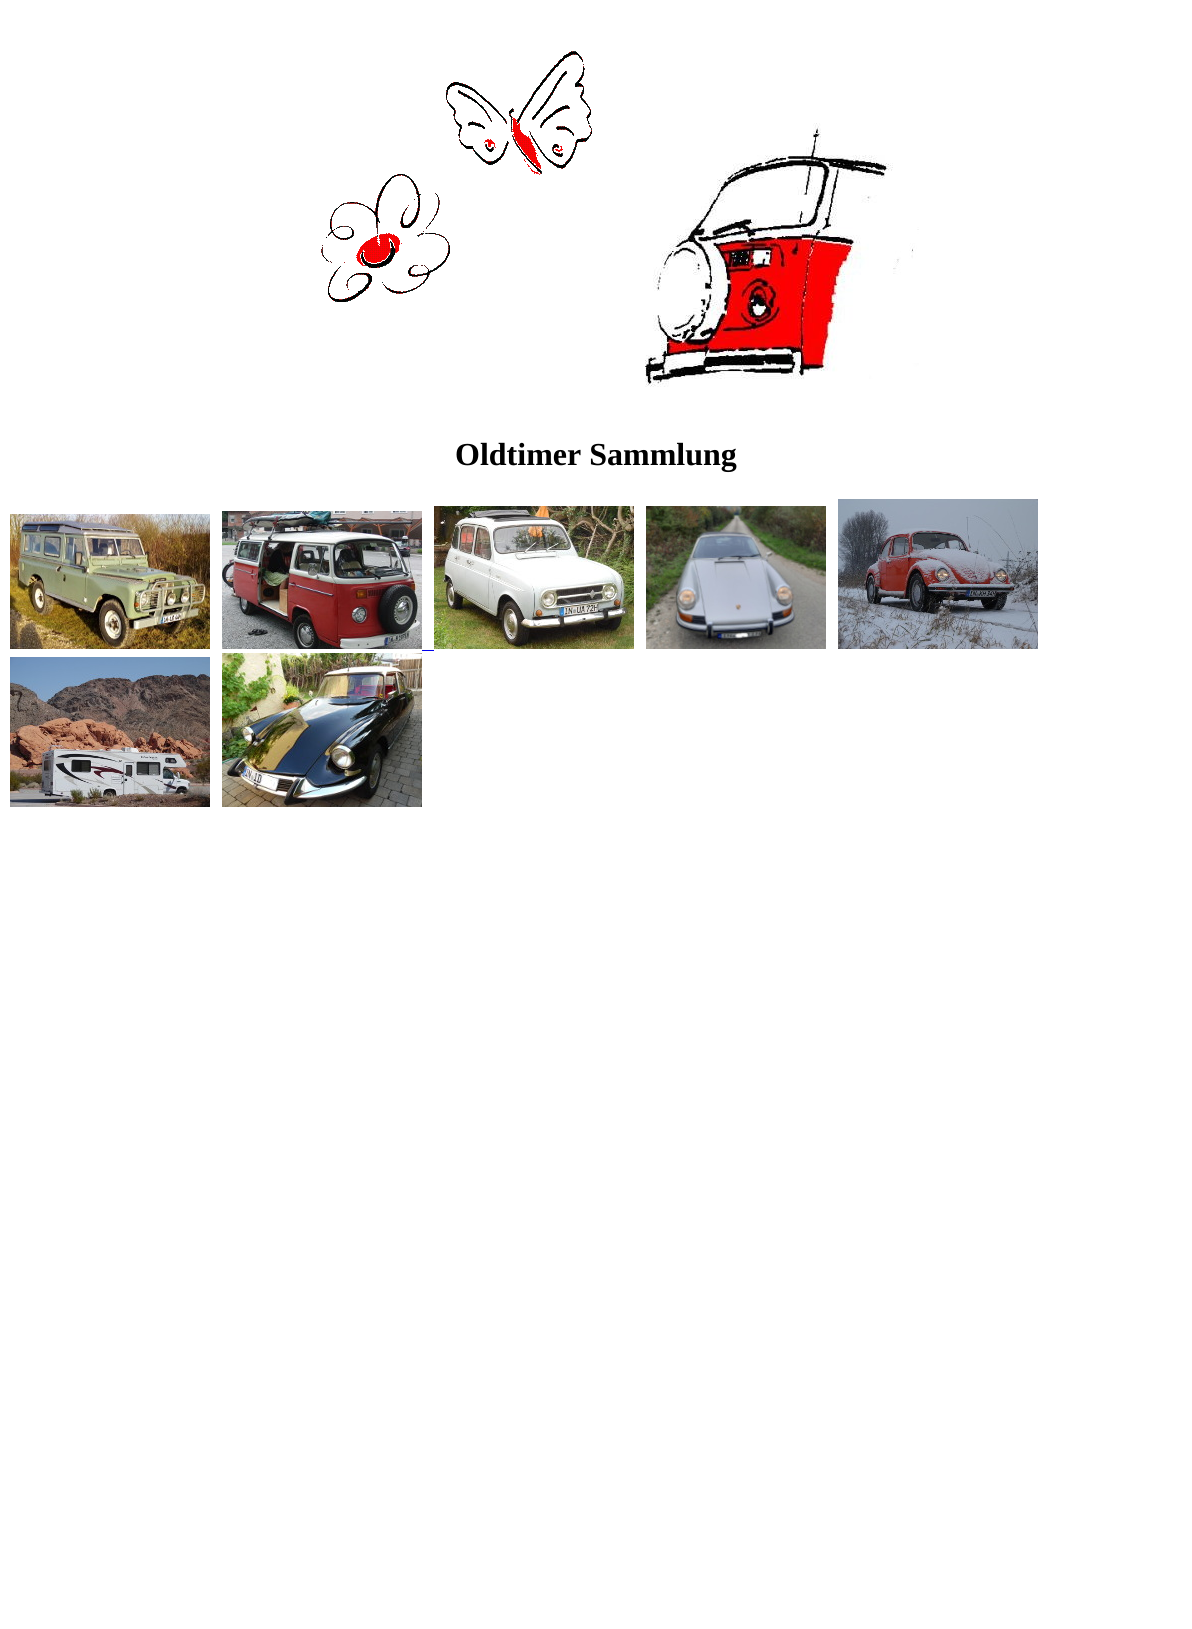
#include <cairo/cairo.h>
#include <math.h>
#include <stddef.h>

static cairo_t *cr;

static void rgb(unsigned color)
{
	cairo_set_source_rgb(cr, (color >> 16) / 255.0, (color >> 8 & 255) / 255.0, (color & 255) / 255.0);
}

static void image(const char *path, double x, double y, double w, double h)
{
	cairo_surface_t *image = cairo_image_surface_create_from_png(path);
	cairo_save(cr);
	cairo_set_source_surface(cr, image, x, y);
	cairo_rectangle(cr, x, y, w, h);
	cairo_fill(cr);
	cairo_restore(cr);
	cairo_surface_destroy(image);
}

int main(void) {
	cairo_surface_t *surface = cairo_image_surface_create(CAIRO_FORMAT_RGB24, 1192, 1629);
	cr = cairo_create(surface);
	cairo_font_options_t *options = cairo_font_options_create();
	cairo_font_options_set_hint_metrics(options, CAIRO_HINT_METRICS_OFF);
	cairo_font_options_set_hint_style(options, CAIRO_HINT_STYLE_NONE);
	cairo_set_font_options(cr, options);
	cairo_set_miter_limit(cr, 4);
	rgb(0xffffff);
	cairo_paint(cr);
	image("img/1.png", 321, 51, 271, 251);
	image("img/2.png", 645, 123, 274, 264);
	image("img/3.png", 10, 514, 200, 135);
	image("img/4.png", 222, 511, 200, 138);
	image("img/5.png", 434, 506, 200, 143);
	image("img/6.png", 646, 506, 180, 143);
	image("img/7.png", 838, 499, 200, 150);
	rgb(0x0000ee);
	cairo_rectangle(cr, 422, 650, 12, 1);
	cairo_fill(cr);
	image("img/8.png", 10, 657, 200, 150);
	image("img/9.png", 222, 653, 200, 154);
	cairo_select_font_face(cr, "Liberation Serif", CAIRO_FONT_SLANT_NORMAL, CAIRO_FONT_WEIGHT_BOLD);
	cairo_set_font_size(cr, 32);
	rgb(0x000000);
	cairo_move_to(cr, 455, 465);
	cairo_show_text(cr, "Oldtimer Sammlung");
	cairo_surface_write_to_png(surface, "page.png");
	cairo_font_options_destroy(options);
	cairo_destroy(cr);
	cairo_surface_destroy(surface);
	return 0;
}
